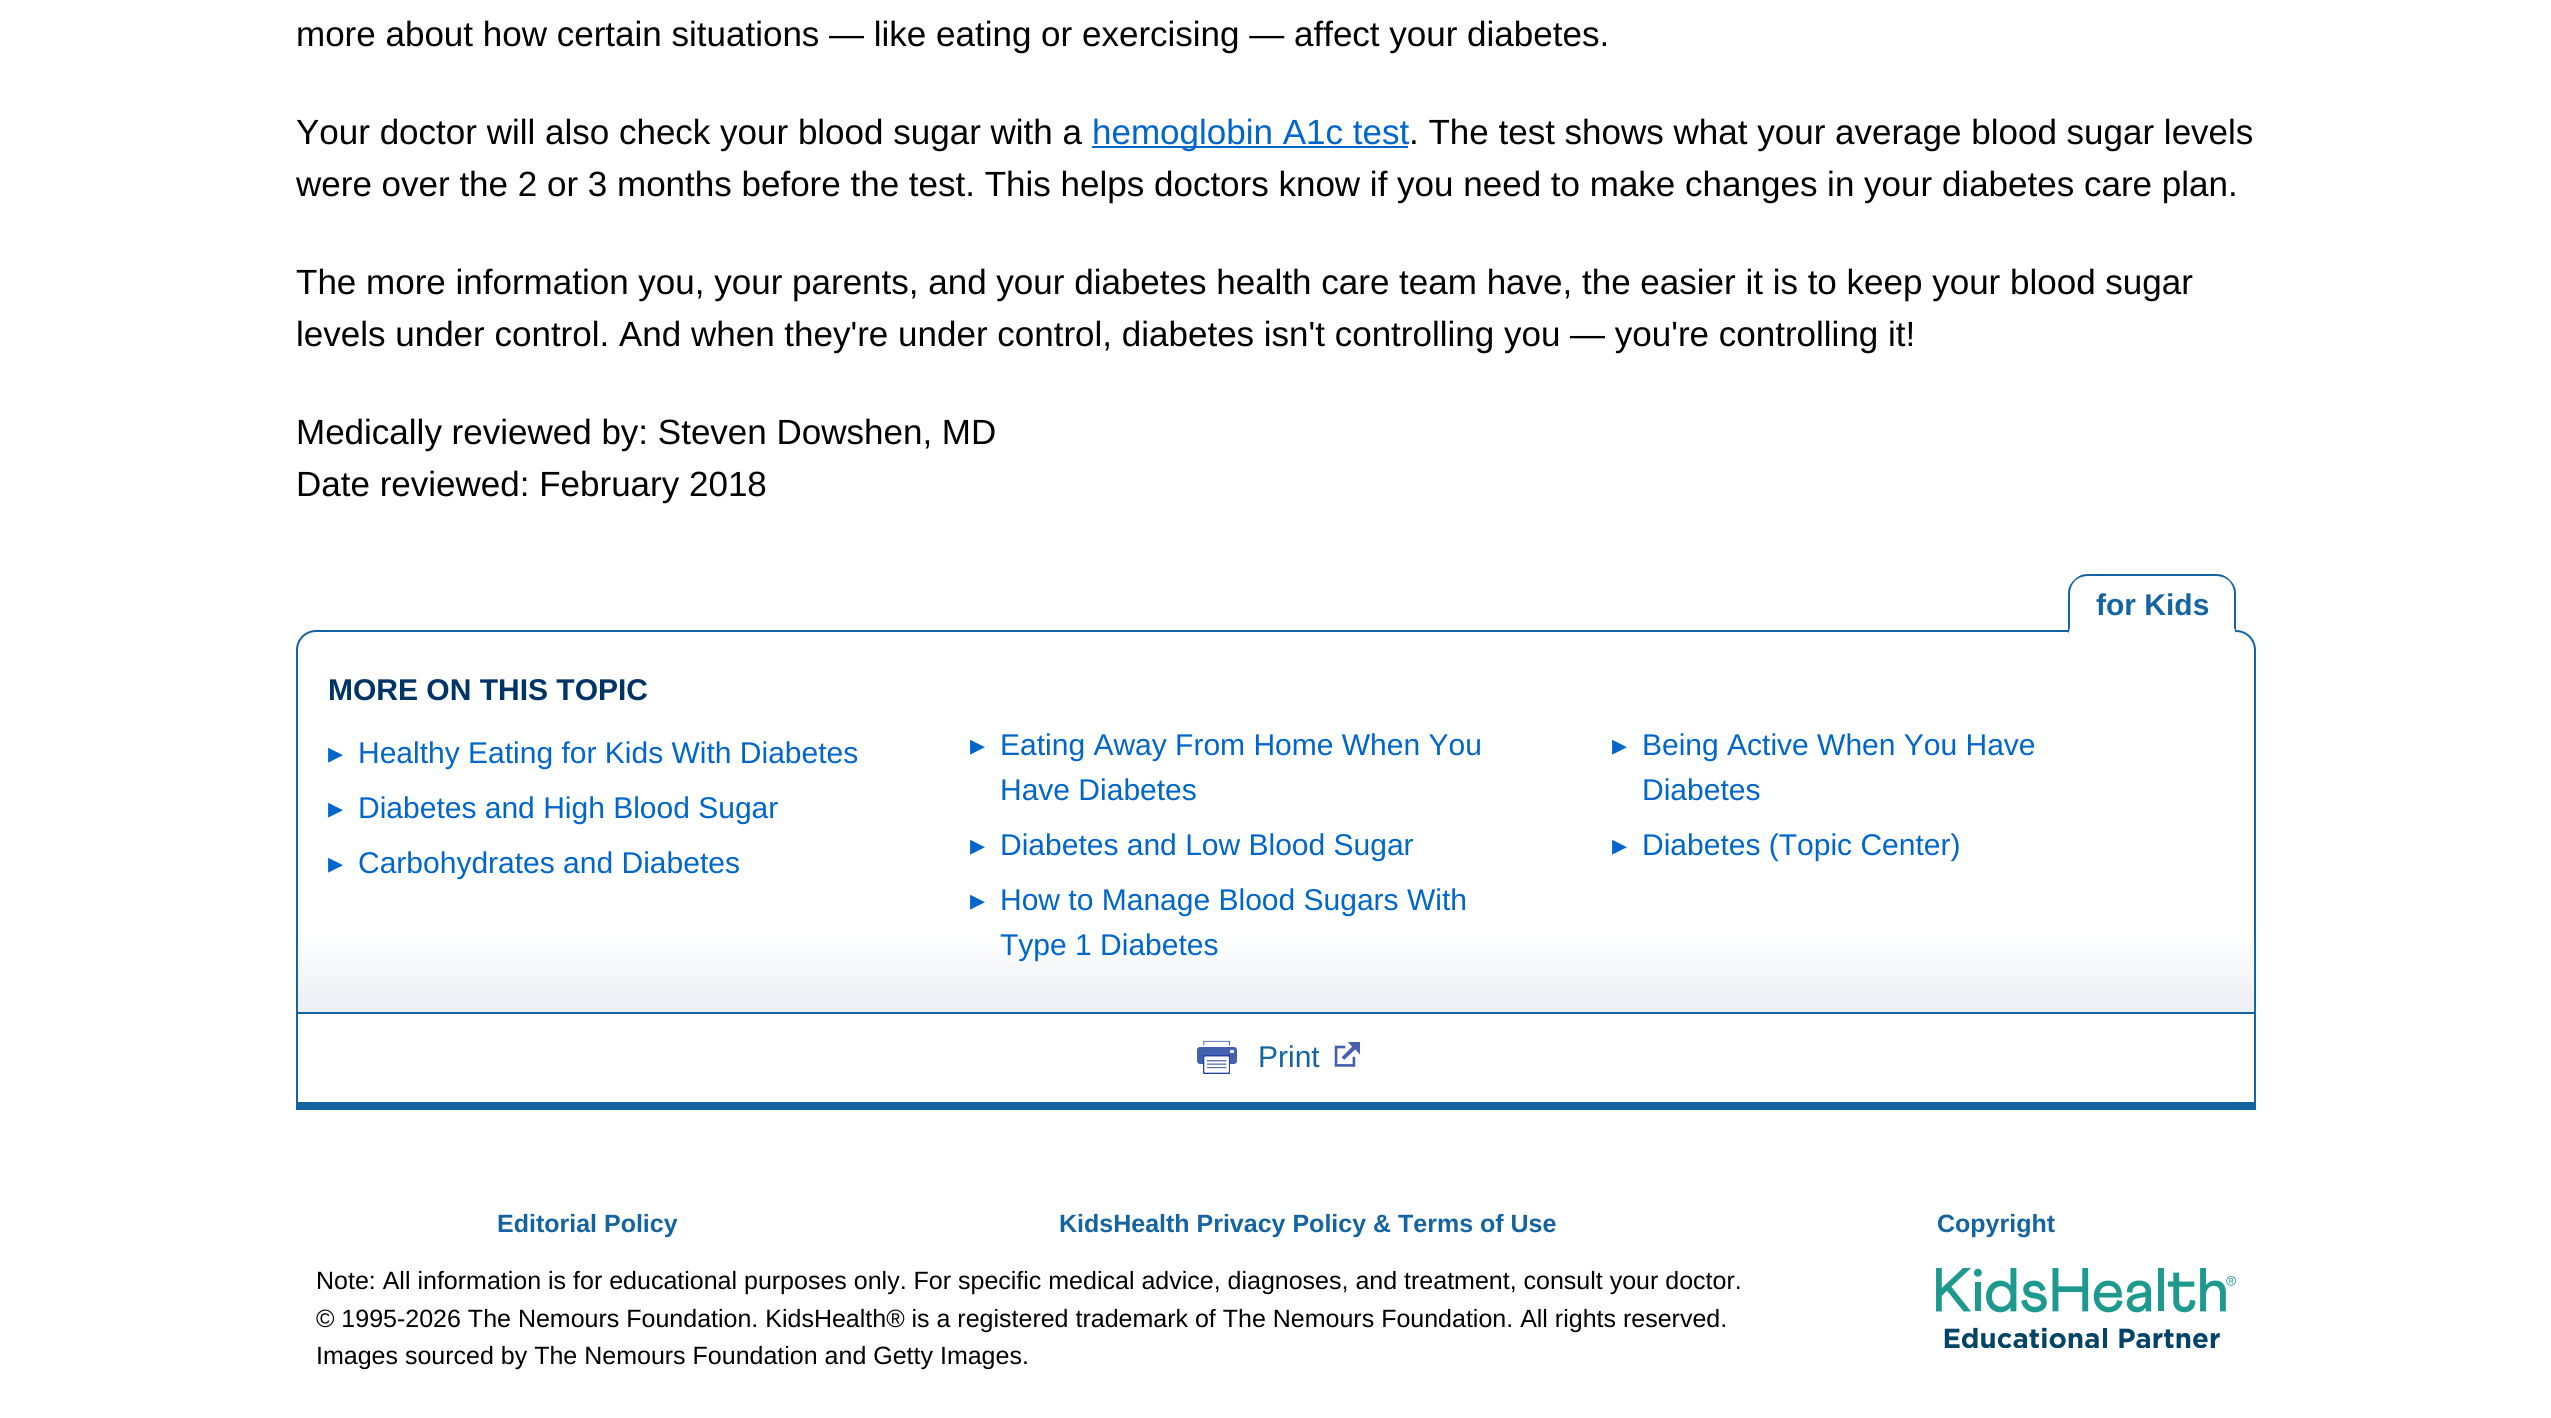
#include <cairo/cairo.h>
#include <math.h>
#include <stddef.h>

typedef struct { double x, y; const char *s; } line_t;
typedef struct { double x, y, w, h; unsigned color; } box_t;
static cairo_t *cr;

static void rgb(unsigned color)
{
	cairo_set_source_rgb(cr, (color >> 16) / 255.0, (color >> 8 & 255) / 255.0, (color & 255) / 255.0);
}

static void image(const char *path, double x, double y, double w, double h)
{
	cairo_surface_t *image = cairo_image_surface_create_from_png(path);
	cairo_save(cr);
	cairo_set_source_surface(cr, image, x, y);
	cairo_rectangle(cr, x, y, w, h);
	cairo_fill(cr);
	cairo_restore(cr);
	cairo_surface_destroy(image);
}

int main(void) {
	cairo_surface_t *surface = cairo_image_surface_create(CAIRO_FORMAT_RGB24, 2551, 1418);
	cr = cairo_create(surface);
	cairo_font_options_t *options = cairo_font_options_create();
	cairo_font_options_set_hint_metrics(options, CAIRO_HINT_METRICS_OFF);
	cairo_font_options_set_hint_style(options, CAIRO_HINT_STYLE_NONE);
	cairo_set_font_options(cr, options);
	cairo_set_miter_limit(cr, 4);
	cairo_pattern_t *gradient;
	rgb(0xffffff);
	cairo_paint(cr);
	rgb(0x0066cc);
	cairo_rectangle(cr, 1092, 146, 316, 2);
	cairo_fill(cr);
	rgb(0x1564a2);
	cairo_new_path(cr);
	cairo_move_to(cr, 2088, 574);
	cairo_curve_to(cr, 2082, 574, 2078, 576, 2074, 580);
	cairo_line_to(cr, 2075, 581);
	cairo_curve_to(cr, 2078, 578, 2083, 576, 2088, 576);
	cairo_line_to(cr, 2216, 576);
	cairo_curve_to(cr, 2221, 576, 2226, 578, 2229, 581);
	cairo_line_to(cr, 2230, 580);
	cairo_curve_to(cr, 2226, 576, 2222, 574, 2216, 574);
	cairo_close_path(cr);
	cairo_fill(cr);
	cairo_save(cr);
	cairo_new_path(cr);
	cairo_move_to(cr, 316, 630);
	cairo_line_to(cr, 2236, 630);
	cairo_curve_to(cr, 2247, 630, 2256, 639, 2256, 650);
	cairo_line_to(cr, 2256, 1014);
	cairo_line_to(cr, 296, 1014);
	cairo_line_to(cr, 296, 650);
	cairo_curve_to(cr, 296, 639, 305, 630, 316, 630);
	cairo_close_path(cr);
	cairo_clip(cr);
	gradient = cairo_pattern_create_linear(1276, 1012, 1276, 632);
	cairo_pattern_add_color_stop_rgba(gradient, 0, 0.922, 0.937, 0.953, 1);
	cairo_pattern_add_color_stop_rgba(gradient, 0.21, 1, 1, 1, 1);
	cairo_set_source(cr, gradient);
	cairo_pattern_destroy(gradient);
	cairo_rectangle(cr, 296, 632, 1960, 380);
	cairo_fill(cr);
	cairo_restore(cr);
	cairo_new_path(cr);
	cairo_move_to(cr, 316, 631);
	cairo_line_to(cr, 2236, 631);
	cairo_curve_to(cr, 2246.5, 631, 2255, 639.5, 2255, 650);
	cairo_line_to(cr, 2255, 1013);
	cairo_line_to(cr, 297, 1013);
	cairo_line_to(cr, 297, 650);
	cairo_curve_to(cr, 297, 639.5, 305.5, 631, 316, 631);
	cairo_close_path(cr);
	cairo_stroke(cr);
	cairo_new_path(cr);
	cairo_move_to(cr, 2236, 634);
	cairo_line_to(cr, 2236, 594);
	cairo_curve_to(cr, 2236, 588, 2234, 584, 2230, 580);
	cairo_line_to(cr, 2229, 581);
	cairo_curve_to(cr, 2232, 584, 2234, 589, 2234, 594);
	cairo_line_to(cr, 2234, 628);
	cairo_close_path(cr);
	cairo_fill(cr);
	rgb(0xffffff);
	cairo_new_path(cr);
	cairo_move_to(cr, 2236, 634);
	cairo_line_to(cr, 2234, 628);
	cairo_line_to(cr, 2070, 628);
	cairo_line_to(cr, 2068, 634);
	cairo_close_path(cr);
	cairo_fill(cr);
	rgb(0x1564a2);
	cairo_new_path(cr);
	cairo_move_to(cr, 2068, 634);
	cairo_line_to(cr, 2070, 628);
	cairo_line_to(cr, 2070, 594);
	cairo_curve_to(cr, 2070, 589, 2072, 584, 2075, 581);
	cairo_line_to(cr, 2074, 580);
	cairo_curve_to(cr, 2070, 584, 2068, 588, 2068, 594);
	cairo_close_path(cr);
	cairo_fill(cr);
	{
		static const box_t items[] = {
			{2254, 1014, 2, 96, 0x1564a2},
			{296, 1102, 1960, 8, 0x1564a2},
			{296, 1014, 2, 96, 0x1564a2},
		};
		for (size_t i = 0; i < sizeof items / sizeof *items; i++) {
			rgb(items[i].color);
			cairo_rectangle(cr, items[i].x, items[i].y, items[i].w, items[i].h);
			cairo_fill(cr);
		}
	}
	image("img/1.png", 1197, 1040, 40, 34);
	image("img/2.png", 1334, 1042, 26, 25);
	image("img/3.png", 1936, 1268, 300, 80);
	cairo_select_font_face(cr, "Liberation Sans", CAIRO_FONT_SLANT_NORMAL, CAIRO_FONT_WEIGHT_NORMAL);
	cairo_set_font_size(cr, 35);
	rgb(0x000000);
	cairo_move_to(cr, 296, 46);
	cairo_show_text(cr, "more about how certain situations — like eating or exercising — affect your diabetes.");
	cairo_move_to(cr, 296, 144);
	cairo_show_text(cr, "Your doctor will also check your blood sugar with a");
	rgb(0x0066cc);
	cairo_move_to(cr, 1092, 144);
	cairo_show_text(cr, "hemoglobin A1c test");
	rgb(0x000000);
	{
		static const line_t items[] = {
			{1409, 144, ". The test shows what your average blood sugar levels"},
			{296, 196, "were over the 2 or 3 months before the test. This helps doctors know if you need to make changes in your diabetes care plan."},
			{296, 294, "The more information you, your parents, and your diabetes health care team have, the easier it is to keep your blood sugar"},
			{296, 346, "levels under control. And when they're under control, diabetes isn't controlling you — you're controlling it!"},
			{296, 444, "Medically reviewed by: Steven Dowshen, MD"},
			{296, 496, "Date reviewed: February 2018"},
		};
		for (size_t i = 0; i < sizeof items / sizeof *items; i++) {
			cairo_move_to(cr, items[i].x, items[i].y);
			cairo_show_text(cr, items[i].s);
		}
	}
	cairo_select_font_face(cr, "Liberation Sans", CAIRO_FONT_SLANT_NORMAL, CAIRO_FONT_WEIGHT_BOLD);
	cairo_set_font_size(cr, 30);
	rgb(0x1564a2);
	cairo_move_to(cr, 2096, 615);
	cairo_show_text(cr, "for Kids");
	rgb(0x003366);
	cairo_move_to(cr, 328, 700);
	cairo_show_text(cr, "MORE ON THIS TOPIC");
	cairo_select_font_face(cr, "DejaVu Sans", CAIRO_FONT_SLANT_NORMAL, CAIRO_FONT_WEIGHT_NORMAL);
	rgb(0x0066cc);
	cairo_move_to(cr, 328, 763);
	cairo_show_text(cr, "▸");
	cairo_select_font_face(cr, "Liberation Sans", CAIRO_FONT_SLANT_NORMAL, CAIRO_FONT_WEIGHT_NORMAL);
	cairo_move_to(cr, 358, 763);
	cairo_show_text(cr, "Healthy Eating for Kids With Diabetes");
	cairo_select_font_face(cr, "DejaVu Sans", CAIRO_FONT_SLANT_NORMAL, CAIRO_FONT_WEIGHT_NORMAL);
	cairo_move_to(cr, 970, 755);
	cairo_show_text(cr, "▸");
	cairo_select_font_face(cr, "Liberation Sans", CAIRO_FONT_SLANT_NORMAL, CAIRO_FONT_WEIGHT_NORMAL);
	cairo_move_to(cr, 1000, 755);
	cairo_show_text(cr, "Eating Away From Home When You");
	cairo_move_to(cr, 1000, 800);
	cairo_show_text(cr, "Have Diabetes");
	cairo_select_font_face(cr, "DejaVu Sans", CAIRO_FONT_SLANT_NORMAL, CAIRO_FONT_WEIGHT_NORMAL);
	cairo_move_to(cr, 1612, 755);
	cairo_show_text(cr, "▸");
	cairo_select_font_face(cr, "Liberation Sans", CAIRO_FONT_SLANT_NORMAL, CAIRO_FONT_WEIGHT_NORMAL);
	cairo_move_to(cr, 1642, 755);
	cairo_show_text(cr, "Being Active When You Have");
	cairo_move_to(cr, 1642, 800);
	cairo_show_text(cr, "Diabetes");
	cairo_select_font_face(cr, "DejaVu Sans", CAIRO_FONT_SLANT_NORMAL, CAIRO_FONT_WEIGHT_NORMAL);
	cairo_move_to(cr, 328, 818);
	cairo_show_text(cr, "▸");
	cairo_select_font_face(cr, "Liberation Sans", CAIRO_FONT_SLANT_NORMAL, CAIRO_FONT_WEIGHT_NORMAL);
	cairo_move_to(cr, 358, 818);
	cairo_show_text(cr, "Diabetes and High Blood Sugar");
	cairo_select_font_face(cr, "DejaVu Sans", CAIRO_FONT_SLANT_NORMAL, CAIRO_FONT_WEIGHT_NORMAL);
	cairo_move_to(cr, 970, 855);
	cairo_show_text(cr, "▸");
	cairo_select_font_face(cr, "Liberation Sans", CAIRO_FONT_SLANT_NORMAL, CAIRO_FONT_WEIGHT_NORMAL);
	cairo_move_to(cr, 1000, 855);
	cairo_show_text(cr, "Diabetes and Low Blood Sugar");
	cairo_select_font_face(cr, "DejaVu Sans", CAIRO_FONT_SLANT_NORMAL, CAIRO_FONT_WEIGHT_NORMAL);
	cairo_move_to(cr, 1612, 855);
	cairo_show_text(cr, "▸");
	cairo_select_font_face(cr, "Liberation Sans", CAIRO_FONT_SLANT_NORMAL, CAIRO_FONT_WEIGHT_NORMAL);
	cairo_move_to(cr, 1642, 855);
	cairo_show_text(cr, "Diabetes (Topic Center)");
	cairo_select_font_face(cr, "DejaVu Sans", CAIRO_FONT_SLANT_NORMAL, CAIRO_FONT_WEIGHT_NORMAL);
	cairo_move_to(cr, 328, 873);
	cairo_show_text(cr, "▸");
	cairo_select_font_face(cr, "Liberation Sans", CAIRO_FONT_SLANT_NORMAL, CAIRO_FONT_WEIGHT_NORMAL);
	cairo_move_to(cr, 358, 873);
	cairo_show_text(cr, "Carbohydrates and Diabetes");
	cairo_select_font_face(cr, "DejaVu Sans", CAIRO_FONT_SLANT_NORMAL, CAIRO_FONT_WEIGHT_NORMAL);
	cairo_move_to(cr, 970, 910);
	cairo_show_text(cr, "▸");
	cairo_select_font_face(cr, "Liberation Sans", CAIRO_FONT_SLANT_NORMAL, CAIRO_FONT_WEIGHT_NORMAL);
	cairo_move_to(cr, 1000, 910);
	cairo_show_text(cr, "How to Manage Blood Sugars With");
	cairo_move_to(cr, 1000, 955);
	cairo_show_text(cr, "Type 1 Diabetes");
	rgb(0x1564a2);
	cairo_move_to(cr, 1258, 1067);
	cairo_show_text(cr, "Print");
	cairo_select_font_face(cr, "Liberation Sans", CAIRO_FONT_SLANT_NORMAL, CAIRO_FONT_WEIGHT_BOLD);
	cairo_set_font_size(cr, 25);
	{
		static const line_t items[] = {
			{497, 1232, "Editorial Policy"},
			{1059, 1232, "KidsHealth Privacy Policy & Terms of Use"},
			{1937, 1232, "Copyright"},
		};
		for (size_t i = 0; i < sizeof items / sizeof *items; i++) {
			cairo_move_to(cr, items[i].x, items[i].y);
			cairo_show_text(cr, items[i].s);
		}
	}
	cairo_select_font_face(cr, "Liberation Sans", CAIRO_FONT_SLANT_NORMAL, CAIRO_FONT_WEIGHT_NORMAL);
	rgb(0x000000);
	{
		static const line_t items[] = {
			{316, 1289, "Note: All information is for educational purposes only. For specific medical advice, diagnoses, and treatment, consult your doctor."},
			{316, 1327, "© 1995-2026 The Nemours Foundation. KidsHealth® is a registered trademark of The Nemours Foundation. All rights reserved."},
			{316, 1364, "Images sourced by The Nemours Foundation and Getty Images."},
		};
		for (size_t i = 0; i < sizeof items / sizeof *items; i++) {
			cairo_move_to(cr, items[i].x, items[i].y);
			cairo_show_text(cr, items[i].s);
		}
	}
	cairo_surface_write_to_png(surface, "page.png");
	cairo_font_options_destroy(options);
	cairo_destroy(cr);
	cairo_surface_destroy(surface);
	return 0;
}
